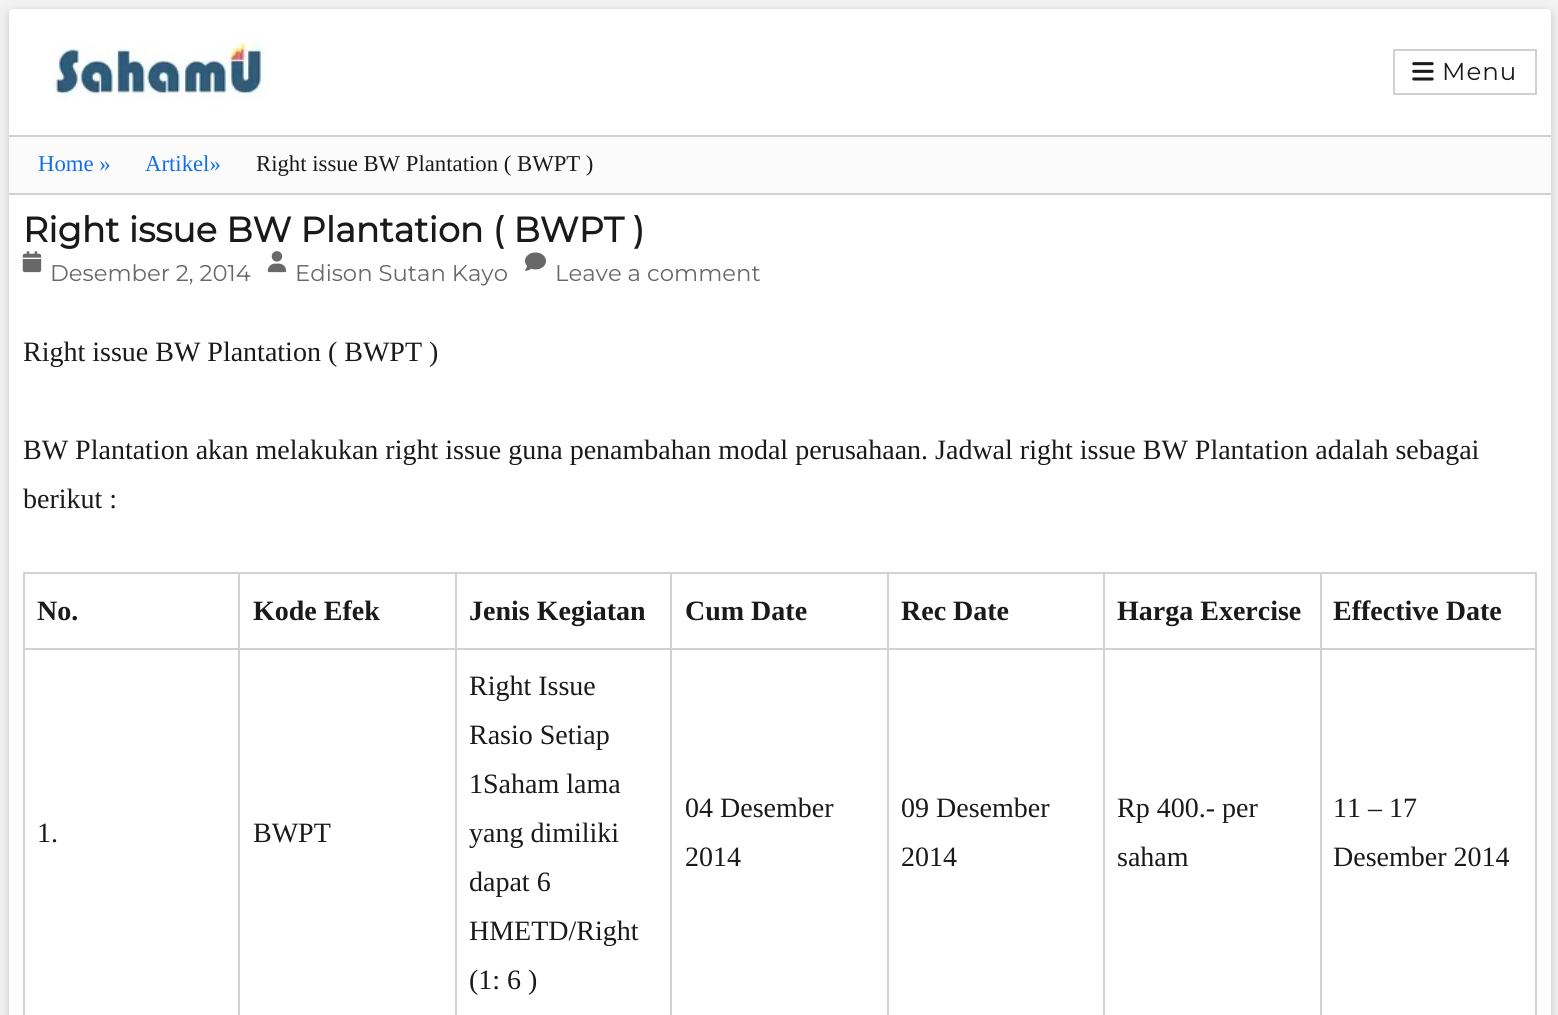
#include <cairo/cairo.h>
#include <math.h>
#include <stddef.h>

typedef struct { double x, y; const char *s; } line_t;
typedef struct { double x, y, w, h; unsigned color; } box_t;
static cairo_t *cr;

static void rgb(unsigned color)
{
	cairo_set_source_rgb(cr, (color >> 16) / 255.0, (color >> 8 & 255) / 255.0, (color & 255) / 255.0);
}

static void tracked(double x, double y, const char *s, double letter, double word)
{
	cairo_move_to(cr, x, y);
	while (*s) {
		char ch[5] = {0};
		int n = 0;
		do ch[n++] = *s++; while ((*s & 0xC0) == 0x80);
		cairo_show_text(cr, ch);
		cairo_rel_move_to(cr, letter + word * (*ch == ' '), 0);
	}
}

static void rrect(double x, double y, double w, double h, double r)
{
	cairo_new_sub_path(cr);
	cairo_arc(cr, x + w - r, y + h - r, r, 0, M_PI / 2);
	cairo_arc(cr, x + r, y + h - r, r, M_PI / 2, M_PI);
	cairo_arc(cr, x + r, y + r, r, M_PI, 1.5 * M_PI);
	cairo_arc(cr, x + w - r, y + r, r, 1.5 * M_PI, 2 * M_PI);
	cairo_close_path(cr);
}

static void soft_shadow(double x, double y, double w, double h, double r, double blur, double alpha)
{
	cairo_push_group_with_content(cr, CAIRO_CONTENT_ALPHA);
	cairo_set_operator(cr, CAIRO_OPERATOR_SOURCE);
	for (int i = 15; i >= -15 && fmin(w, h) + blur * i / 3 > 0; i -= 2) {
		double e = blur * i / 6;
		cairo_set_source_rgba(cr, 0, 0, 0, alpha * erfc((i - 1) / 8.5) / 2);
		rrect(x - e, y - e, w + 2 * e, h + 2 * e, fmax(0, fmin(r + e + blur * .6, fmin(w, h) / 2 + e)));
		cairo_fill(cr);
	}
	cairo_pattern_t *soft = cairo_pop_group(cr);
	cairo_mask(cr, soft);
	cairo_pattern_destroy(soft);
}

static void image(const char *path, double x, double y, double w, double h)
{
	cairo_surface_t *image = cairo_image_surface_create_from_png(path);
	cairo_save(cr);
	cairo_set_source_surface(cr, image, x, y);
	cairo_rectangle(cr, x, y, w, h);
	cairo_fill(cr);
	cairo_restore(cr);
	cairo_surface_destroy(image);
}

int main(void) {
	cairo_surface_t *surface = cairo_image_surface_create(CAIRO_FORMAT_RGB24, 1558, 1015);
	cr = cairo_create(surface);
	cairo_font_options_t *options = cairo_font_options_create();
	cairo_font_options_set_hint_metrics(options, CAIRO_HINT_METRICS_OFF);
	cairo_font_options_set_hint_style(options, CAIRO_HINT_STYLE_NONE);
	cairo_set_font_options(cr, options);
	cairo_set_miter_limit(cr, 4);
	rgb(0xf2f2f2);
	cairo_paint(cr);
	rgb(0x646464);
	soft_shadow(9, 12, 1542, 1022, 4, 5, 0.3);
	rgb(0xffffff);
	rrect(9, 9, 1542, 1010, 4);
	cairo_fill(cr);
	rgb(0xd1d1d1);
	cairo_rectangle(cr, 9, 135, 1542, 2);
	cairo_fill(cr);
	image("img/1.png", 53, 41, 216, 59);
	cairo_rectangle(cr, 1394, 50, 142, 44);
	cairo_stroke(cr);
	image("img/2.png", 1412, 62, 22, 19);
	rgb(0xfbfbfb);
	cairo_rectangle(cr, 9, 137, 1542, 56);
	cairo_fill(cr);
	rgb(0xd1d1d1);
	cairo_rectangle(cr, 9, 193, 1542, 2);
	cairo_fill(cr);
	image("img/3.png", 22, 251, 20, 22);
	image("img/4.png", 267, 251, 20, 22);
	image("img/5.png", 525, 252, 21, 19);
	{
		static const box_t items[] = {
			{23, 572, 1514, 2, 0xd1d1d1},
			{23, 572, 2, 443, 0xd1d1d1},
			{238, 574, 2, 75, 0xd1d1d1},
			{25, 648, 215, 2, 0xd1d1d1},
			{455, 574, 2, 75, 0xd1d1d1},
			{240, 648, 217, 2, 0xd1d1d1},
			{670, 574, 2, 75, 0xd1d1d1},
			{457, 648, 215, 2, 0xd1d1d1},
			{887, 574, 2, 75, 0xd1d1d1},
			{672, 648, 217, 2, 0xd1d1d1},
			{1103, 574, 2, 75, 0xd1d1d1},
			{889, 648, 215, 2, 0xd1d1d1},
			{1320, 574, 2, 75, 0xd1d1d1},
			{1104, 648, 217, 2, 0xd1d1d1},
			{1535, 574, 2, 75, 0xd1d1d1},
			{1321, 648, 216, 2, 0xd1d1d1},
			{238, 649, 2, 366, 0xd1d1d1},
			{455, 649, 2, 366, 0xd1d1d1},
			{670, 649, 2, 366, 0xd1d1d1},
			{887, 649, 2, 366, 0xd1d1d1},
			{1103, 649, 2, 366, 0xd1d1d1},
			{1320, 649, 2, 366, 0xd1d1d1},
			{1535, 649, 2, 366, 0xd1d1d1},
		};
		for (size_t i = 0; i < sizeof items / sizeof *items; i++) {
			rgb(items[i].color);
			cairo_rectangle(cr, items[i].x, items[i].y, items[i].w, items[i].h);
			cairo_fill(cr);
		}
	}
	cairo_select_font_face(cr, "Montserrat Thin", CAIRO_FONT_SLANT_NORMAL, CAIRO_FONT_WEIGHT_NORMAL);
	cairo_set_font_size(cr, 24.5);
	rgb(0x1a1a1a);
	tracked(1442, 80, "Menu", 1, 0);
	cairo_select_font_face(cr, "Liberation Serif", CAIRO_FONT_SLANT_NORMAL, CAIRO_FONT_WEIGHT_NORMAL);
	cairo_set_font_size(cr, 22.75);
	rgb(0x136fe7);
	cairo_move_to(cr, 38, 171);
	cairo_show_text(cr, "Home »");
	cairo_move_to(cr, 145, 171);
	cairo_show_text(cr, "Artikel»");
	rgb(0x1a1a1a);
	cairo_move_to(cr, 256, 171);
	cairo_show_text(cr, "Right issue BW Plantation ( BWPT )");
	cairo_select_font_face(cr, "Montserrat", CAIRO_FONT_SLANT_NORMAL, CAIRO_FONT_WEIGHT_BOLD);
	cairo_set_font_size(cr, 35);
	cairo_move_to(cr, 23, 242);
	cairo_show_text(cr, "Right issue BW Plantation ( BWPT )");
	cairo_select_font_face(cr, "Montserrat Thin", CAIRO_FONT_SLANT_NORMAL, CAIRO_FONT_WEIGHT_NORMAL);
	cairo_set_font_size(cr, 22.75);
	rgb(0x686868);
	{
		static const line_t items[] = {
			{50, 281, "Desember 2, 2014"},
			{295, 281, "Edison Sutan Kayo"},
			{555, 281, "Leave a comment"},
		};
		for (size_t i = 0; i < sizeof items / sizeof *items; i++) {
			cairo_move_to(cr, items[i].x, items[i].y);
			cairo_show_text(cr, items[i].s);
		}
	}
	cairo_select_font_face(cr, "Liberation Serif", CAIRO_FONT_SLANT_NORMAL, CAIRO_FONT_WEIGHT_NORMAL);
	cairo_set_font_size(cr, 28);
	rgb(0x1a1a1a);
	{
		static const line_t items[] = {
			{23, 361, "Right issue BW Plantation ( BWPT )"},
			{23, 459, "BW Plantation akan melakukan right issue guna penambahan modal perusahaan. Jadwal right issue BW Plantation adalah sebagai"},
			{23, 508, "berikut :"},
		};
		for (size_t i = 0; i < sizeof items / sizeof *items; i++) {
			cairo_move_to(cr, items[i].x, items[i].y);
			cairo_show_text(cr, items[i].s);
		}
	}
	cairo_select_font_face(cr, "Liberation Serif", CAIRO_FONT_SLANT_NORMAL, CAIRO_FONT_WEIGHT_BOLD);
	{
		static const line_t items[] = {
			{37, 620, "No."},
			{253, 620, "Kode Efek"},
			{469, 620, "Jenis Kegiatan"},
			{685, 620, "Cum Date"},
			{901, 620, "Rec Date"},
			{1117, 620, "Harga Exercise"},
			{1333, 620, "Effective Date"},
		};
		for (size_t i = 0; i < sizeof items / sizeof *items; i++) {
			cairo_move_to(cr, items[i].x, items[i].y);
			cairo_show_text(cr, items[i].s);
		}
	}
	cairo_select_font_face(cr, "Liberation Serif", CAIRO_FONT_SLANT_NORMAL, CAIRO_FONT_WEIGHT_NORMAL);
	{
		static const line_t items[] = {
			{37, 842, "1."},
			{253, 842, "BWPT"},
			{469, 695, "Right Issue"},
			{469, 744, "Rasio Setiap"},
			{469, 793, "1Saham lama"},
			{469, 842, "yang dimiliki"},
			{469, 891, "dapat 6"},
			{469, 940, "HMETD/Right"},
			{469, 989, "(1: 6 )"},
			{685, 817, "04 Desember"},
			{685, 866, "2014"},
			{901, 817, "09 Desember"},
			{901, 866, "2014"},
			{1117, 817, "Rp 400.- per"},
			{1117, 866, "saham"},
			{1333, 817, "11 – 17"},
			{1333, 866, "Desember 2014"},
		};
		for (size_t i = 0; i < sizeof items / sizeof *items; i++) {
			cairo_move_to(cr, items[i].x, items[i].y);
			cairo_show_text(cr, items[i].s);
		}
	}
	cairo_surface_write_to_png(surface, "page.png");
	cairo_font_options_destroy(options);
	cairo_destroy(cr);
	cairo_surface_destroy(surface);
	return 0;
}
